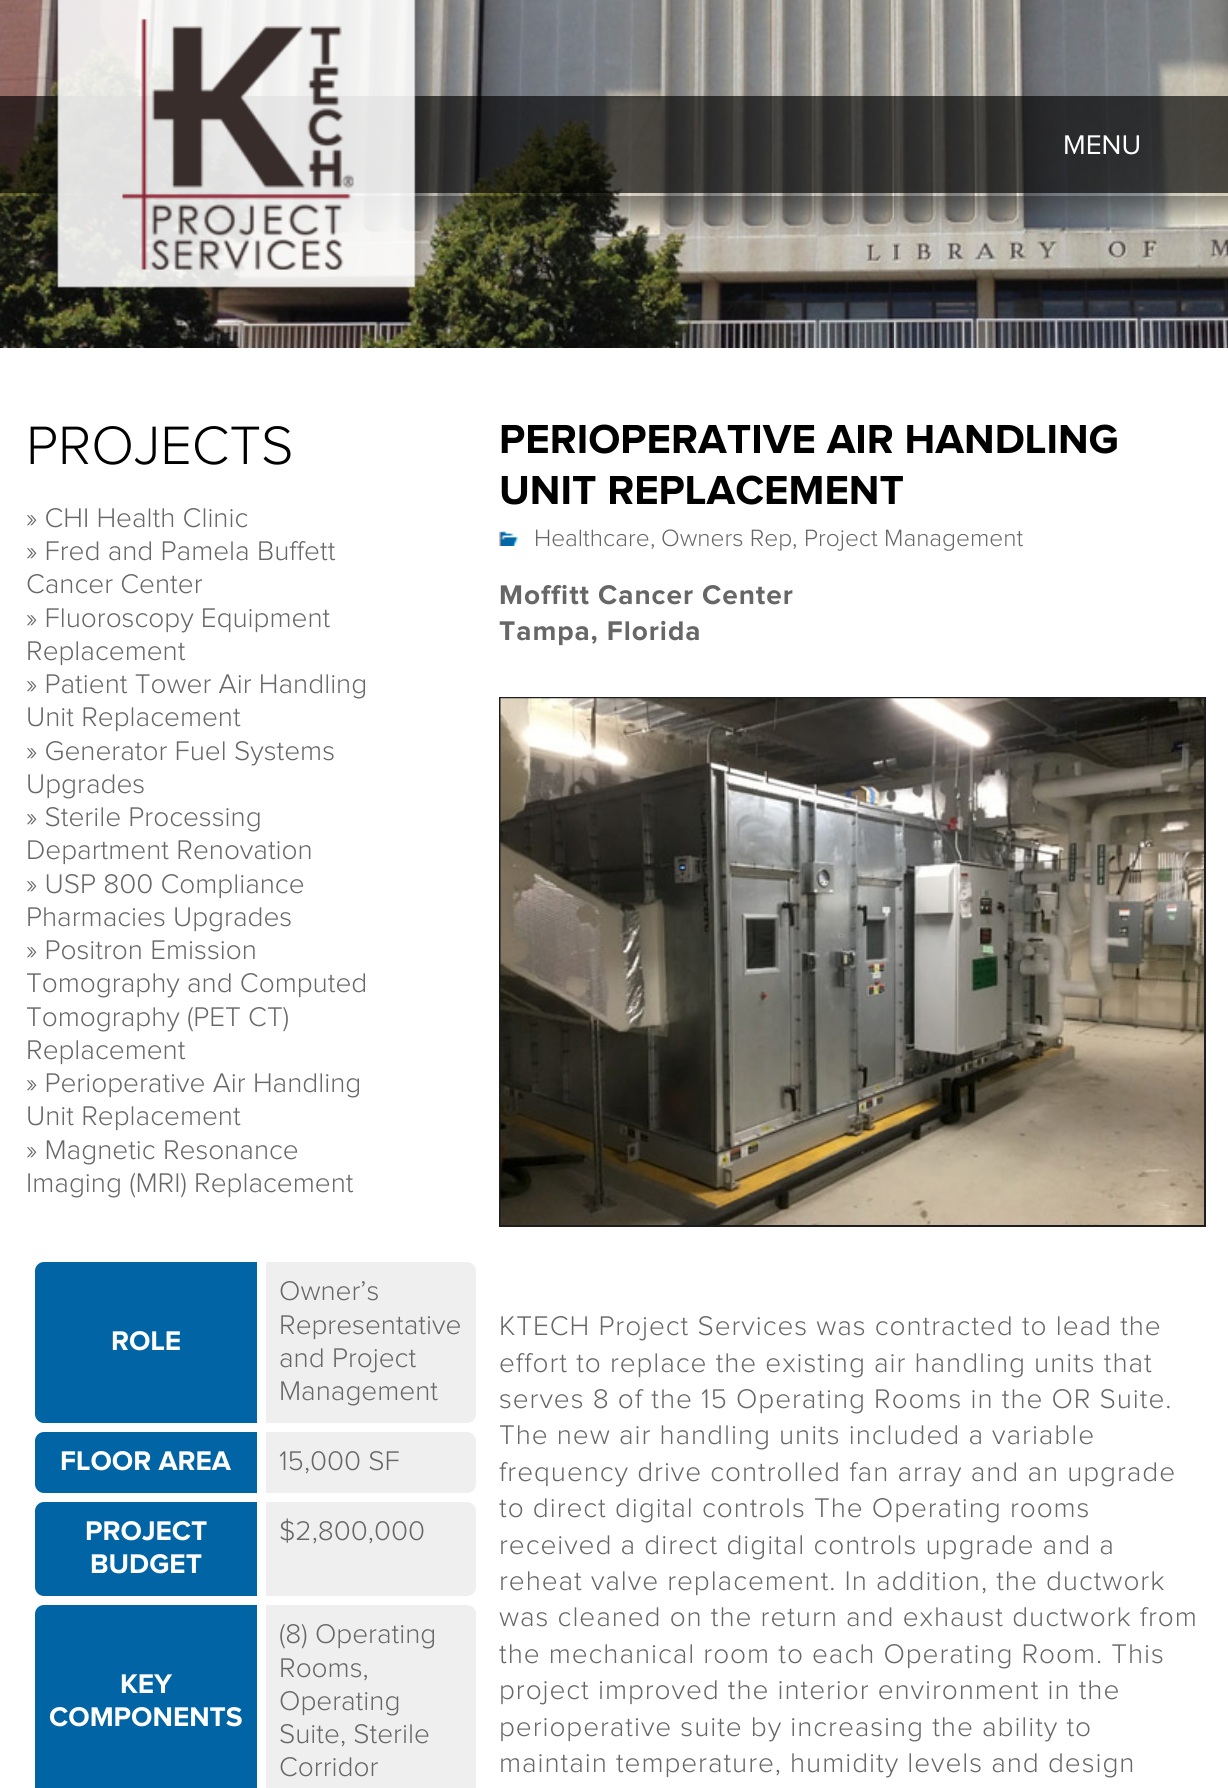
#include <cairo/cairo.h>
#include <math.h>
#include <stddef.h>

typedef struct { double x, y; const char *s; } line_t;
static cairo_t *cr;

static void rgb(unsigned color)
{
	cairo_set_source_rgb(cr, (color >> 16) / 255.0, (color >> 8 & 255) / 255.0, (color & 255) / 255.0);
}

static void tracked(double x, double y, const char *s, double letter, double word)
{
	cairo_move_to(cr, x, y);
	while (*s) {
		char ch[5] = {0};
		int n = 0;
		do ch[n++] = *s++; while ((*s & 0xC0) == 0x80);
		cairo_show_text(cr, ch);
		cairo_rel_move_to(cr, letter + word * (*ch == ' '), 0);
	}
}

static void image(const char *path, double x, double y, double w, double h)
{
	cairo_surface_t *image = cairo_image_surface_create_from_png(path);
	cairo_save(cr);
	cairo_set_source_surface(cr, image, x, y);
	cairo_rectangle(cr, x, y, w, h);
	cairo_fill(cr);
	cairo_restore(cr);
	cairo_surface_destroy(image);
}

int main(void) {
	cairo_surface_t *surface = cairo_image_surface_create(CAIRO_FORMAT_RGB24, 1228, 1788);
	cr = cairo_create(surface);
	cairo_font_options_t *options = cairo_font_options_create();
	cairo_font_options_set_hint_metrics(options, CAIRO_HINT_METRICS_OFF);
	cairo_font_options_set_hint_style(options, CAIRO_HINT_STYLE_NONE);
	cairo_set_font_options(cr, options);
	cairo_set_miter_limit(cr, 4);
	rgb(0xffffff);
	cairo_paint(cr);
	image("img/1.png", 0, 0, 1228, 348);
	cairo_set_source_rgba(cr, 0, 0, 0, 0.65);
	cairo_rectangle(cr, 0, 96, 1228, 97);
	cairo_fill(cr);
	image("img/3.png", 0, 196, 1228, 39);
	image("img/2.png", 39, 0, 394, 301);
	rgb(0x0064a5);
	cairo_new_path(cr);
	cairo_move_to(cr, 44, 1262);
	cairo_line_to(cr, 257, 1262);
	cairo_line_to(cr, 257, 1423);
	cairo_line_to(cr, 44, 1423);
	cairo_curve_to(cr, 39, 1423, 35, 1419, 35, 1414);
	cairo_line_to(cr, 35, 1271);
	cairo_curve_to(cr, 35, 1266, 39, 1262, 44, 1262);
	cairo_close_path(cr);
	cairo_fill(cr);
	rgb(0xefefef);
	cairo_new_path(cr);
	cairo_move_to(cr, 266, 1262);
	cairo_line_to(cr, 467, 1262);
	cairo_curve_to(cr, 472, 1262, 476, 1266, 476, 1271);
	cairo_line_to(cr, 476, 1414);
	cairo_curve_to(cr, 476, 1419, 472, 1423, 467, 1423);
	cairo_line_to(cr, 266, 1423);
	cairo_close_path(cr);
	cairo_fill(cr);
	rgb(0x0064a5);
	cairo_new_path(cr);
	cairo_move_to(cr, 44, 1432);
	cairo_line_to(cr, 257, 1432);
	cairo_line_to(cr, 257, 1493);
	cairo_line_to(cr, 44, 1493);
	cairo_curve_to(cr, 39, 1493, 35, 1489, 35, 1484);
	cairo_line_to(cr, 35, 1441);
	cairo_curve_to(cr, 35, 1436, 39, 1432, 44, 1432);
	cairo_close_path(cr);
	cairo_fill(cr);
	rgb(0xefefef);
	cairo_new_path(cr);
	cairo_move_to(cr, 266, 1432);
	cairo_line_to(cr, 467, 1432);
	cairo_curve_to(cr, 472, 1432, 476, 1436, 476, 1441);
	cairo_line_to(cr, 476, 1484);
	cairo_curve_to(cr, 476, 1489, 472, 1493, 467, 1493);
	cairo_line_to(cr, 266, 1493);
	cairo_close_path(cr);
	cairo_fill(cr);
	rgb(0x0064a5);
	cairo_new_path(cr);
	cairo_move_to(cr, 44, 1502);
	cairo_line_to(cr, 257, 1502);
	cairo_line_to(cr, 257, 1596);
	cairo_line_to(cr, 44, 1596);
	cairo_curve_to(cr, 39, 1596, 35, 1592, 35, 1587);
	cairo_line_to(cr, 35, 1511);
	cairo_curve_to(cr, 35, 1506, 39, 1502, 44, 1502);
	cairo_close_path(cr);
	cairo_fill(cr);
	rgb(0xefefef);
	cairo_new_path(cr);
	cairo_move_to(cr, 266, 1502);
	cairo_line_to(cr, 467, 1502);
	cairo_curve_to(cr, 472, 1502, 476, 1506, 476, 1511);
	cairo_line_to(cr, 476, 1587);
	cairo_curve_to(cr, 476, 1592, 472, 1596, 467, 1596);
	cairo_line_to(cr, 266, 1596);
	cairo_close_path(cr);
	cairo_fill(cr);
	rgb(0x0064a5);
	cairo_new_path(cr);
	cairo_move_to(cr, 44, 1605);
	cairo_line_to(cr, 257, 1605);
	cairo_line_to(cr, 257, 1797);
	cairo_line_to(cr, 44, 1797);
	cairo_curve_to(cr, 39, 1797, 35, 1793, 35, 1788);
	cairo_line_to(cr, 35, 1614);
	cairo_curve_to(cr, 35, 1609, 39, 1605, 44, 1605);
	cairo_close_path(cr);
	cairo_fill(cr);
	rgb(0xefefef);
	cairo_new_path(cr);
	cairo_move_to(cr, 266, 1605);
	cairo_line_to(cr, 467, 1605);
	cairo_curve_to(cr, 472, 1605, 476, 1609, 476, 1614);
	cairo_line_to(cr, 476, 1788);
	cairo_curve_to(cr, 476, 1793, 472, 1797, 467, 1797);
	cairo_line_to(cr, 266, 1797);
	cairo_close_path(cr);
	cairo_fill(cr);
	image("img/4.png", 499, 531, 19, 15);
	cairo_rectangle(cr, 500, 698, 705, 528);
	rgb(0x1d1d1e);
	cairo_stroke(cr);
	image("img/5.png", 500, 698, 704, 527);
	cairo_select_font_face(cr, "Proxima Nova", CAIRO_FONT_SLANT_NORMAL, CAIRO_FONT_WEIGHT_NORMAL);
	cairo_set_font_size(cr, 28);
	rgb(0xffffff);
	cairo_move_to(cr, 1063, 154);
	cairo_show_text(cr, "MENU");
	cairo_select_font_face(cr, "Proxima Nova Light", CAIRO_FONT_SLANT_NORMAL, CAIRO_FONT_WEIGHT_NORMAL);
	cairo_set_font_size(cr, 56);
	rgb(0x000000);
	cairo_move_to(cr, 26, 464);
	cairo_show_text(cr, "PROJECTS");
	cairo_set_font_size(cr, 28);
	rgb(0x676767);
	{
		static const line_t items[] = {
			{26, 527, "» CHI Health Clinic"},
			{26, 560, "» Fred and Pamela Buffett"},
			{26, 593, "Cancer Center"},
			{26, 627, "» Fluoroscopy Equipment"},
			{26, 660, "Replacement"},
			{26, 693, "» Patient Tower Air Handling"},
			{26, 726, "Unit Replacement"},
			{26, 760, "» Generator Fuel Systems"},
			{26, 793, "Upgrades"},
			{26, 826, "» Sterile Processing"},
			{26, 859, "Department Renovation"},
			{26, 893, "» USP 800 Compliance"},
			{26, 926, "Pharmacies Upgrades"},
			{26, 959, "» Positron Emission"},
			{26, 992, "Tomography and Computed"},
			{26, 1026, "Tomography (PET CT)"},
			{26, 1059, "Replacement"},
			{26, 1092, "» Perioperative Air Handling"},
			{26, 1125, "Unit Replacement"},
			{26, 1159, "» Magnetic Resonance"},
			{26, 1192, "Imaging (MRI) Replacement"},
		};
		for (size_t i = 0; i < sizeof items / sizeof *items; i++) {
			cairo_move_to(cr, items[i].x, items[i].y);
			cairo_show_text(cr, items[i].s);
		}
	}
	cairo_select_font_face(cr, "Proxima Nova", CAIRO_FONT_SLANT_NORMAL, CAIRO_FONT_WEIGHT_BOLD);
	rgb(0xffffff);
	cairo_move_to(cr, 111, 1350);
	cairo_show_text(cr, "ROLE");
	cairo_select_font_face(cr, "Proxima Nova Light", CAIRO_FONT_SLANT_NORMAL, CAIRO_FONT_WEIGHT_NORMAL);
	rgb(0x676767);
	{
		static const line_t items[] = {
			{279, 1300, "Owner’s"},
			{279, 1334, "Representative"},
			{279, 1367, "and Project"},
			{279, 1400, "Management"},
		};
		for (size_t i = 0; i < sizeof items / sizeof *items; i++) {
			cairo_move_to(cr, items[i].x, items[i].y);
			cairo_show_text(cr, items[i].s);
		}
	}
	cairo_select_font_face(cr, "Proxima Nova", CAIRO_FONT_SLANT_NORMAL, CAIRO_FONT_WEIGHT_BOLD);
	rgb(0xffffff);
	cairo_move_to(cr, 60, 1470);
	cairo_show_text(cr, "FLOOR AREA");
	cairo_select_font_face(cr, "Proxima Nova Light", CAIRO_FONT_SLANT_NORMAL, CAIRO_FONT_WEIGHT_NORMAL);
	rgb(0x676767);
	cairo_move_to(cr, 279, 1470);
	cairo_show_text(cr, "15,000 SF");
	cairo_select_font_face(cr, "Proxima Nova", CAIRO_FONT_SLANT_NORMAL, CAIRO_FONT_WEIGHT_BOLD);
	rgb(0xffffff);
	cairo_move_to(cr, 85, 1540);
	cairo_show_text(cr, "PROJECT");
	cairo_move_to(cr, 90, 1573);
	cairo_show_text(cr, "BUDGET");
	cairo_select_font_face(cr, "Proxima Nova Light", CAIRO_FONT_SLANT_NORMAL, CAIRO_FONT_WEIGHT_NORMAL);
	rgb(0x676767);
	cairo_move_to(cr, 279, 1540);
	cairo_show_text(cr, "$2,800,000");
	cairo_select_font_face(cr, "Proxima Nova", CAIRO_FONT_SLANT_NORMAL, CAIRO_FONT_WEIGHT_BOLD);
	rgb(0xffffff);
	cairo_move_to(cr, 120, 1693);
	cairo_show_text(cr, "KEY");
	cairo_move_to(cr, 49, 1726);
	cairo_show_text(cr, "COMPONENTS");
	cairo_select_font_face(cr, "Proxima Nova Light", CAIRO_FONT_SLANT_NORMAL, CAIRO_FONT_WEIGHT_NORMAL);
	rgb(0x676767);
	{
		static const line_t items[] = {
			{279, 1643, "(8) Operating"},
			{279, 1677, "Rooms,"},
			{279, 1710, "Operating"},
			{279, 1743, "Suite, Sterile"},
			{279, 1776, "Corridor"},
		};
		for (size_t i = 0; i < sizeof items / sizeof *items; i++) {
			cairo_move_to(cr, items[i].x, items[i].y);
			cairo_show_text(cr, items[i].s);
		}
	}
	cairo_select_font_face(cr, "Proxima Nova", CAIRO_FONT_SLANT_NORMAL, CAIRO_FONT_WEIGHT_BOLD);
	cairo_set_font_size(cr, 42);
	rgb(0x000000);
	cairo_move_to(cr, 499, 453);
	cairo_show_text(cr, "PERIOPERATIVE AIR HANDLING");
	cairo_move_to(cr, 499, 504);
	cairo_show_text(cr, "UNIT REPLACEMENT");
	cairo_select_font_face(cr, "Proxima Nova Light", CAIRO_FONT_SLANT_NORMAL, CAIRO_FONT_WEIGHT_NORMAL);
	cairo_set_font_size(cr, 24.5);
	rgb(0x676767);
	{
		static const line_t items[] = {
			{534, 546, "Healthcare"},
			{650, 546, ","},
			{661, 546, "Owners Rep"},
			{792, 546, ","},
			{804, 546, "Project Management"},
		};
		for (size_t i = 0; i < sizeof items / sizeof *items; i++) {
			cairo_move_to(cr, items[i].x, items[i].y);
			cairo_show_text(cr, items[i].s);
		}
	}
	cairo_select_font_face(cr, "Proxima Nova", CAIRO_FONT_SLANT_NORMAL, CAIRO_FONT_WEIGHT_BOLD);
	cairo_set_font_size(cr, 28);
	tracked(499, 604, "Moffitt Cancer Center", 0.95, 0);
	tracked(499, 640, "Tampa, Florida", 0.95, 0);
	cairo_select_font_face(cr, "Proxima Nova Light", CAIRO_FONT_SLANT_NORMAL, CAIRO_FONT_WEIGHT_NORMAL);
	{
		static const line_t items[] = {
			{499, 1335, "KTECH Project Services was contracted to lead the"},
			{499, 1372, "effort to replace the existing air handling units that"},
			{499, 1408, "serves 8 of the 15 Operating Rooms in the OR Suite."},
			{499, 1444, "The new air handling units included a variable"},
			{499, 1481, "frequency drive controlled fan array and an upgrade"},
			{499, 1517, "to direct digital controls The Operating rooms"},
			{499, 1554, "received a direct digital controls upgrade and a"},
			{499, 1590, "reheat valve replacement. In addition, the ductwork"},
			{499, 1626, "was cleaned on the return and exhaust ductwork from"},
			{499, 1663, "the mechanical room to each Operating Room. This"},
			{499, 1699, "project improved the interior environment in the"},
			{499, 1736, "perioperative suite by increasing the ability to"},
			{499, 1772, "maintain temperature, humidity levels and design"},
		};
		for (size_t i = 0; i < sizeof items / sizeof *items; i++) {
			tracked(items[i].x, items[i].y, items[i].s, 0.95, 0);
		}
	}
	cairo_surface_write_to_png(surface, "page.png");
	cairo_font_options_destroy(options);
	cairo_destroy(cr);
	cairo_surface_destroy(surface);
	return 0;
}
